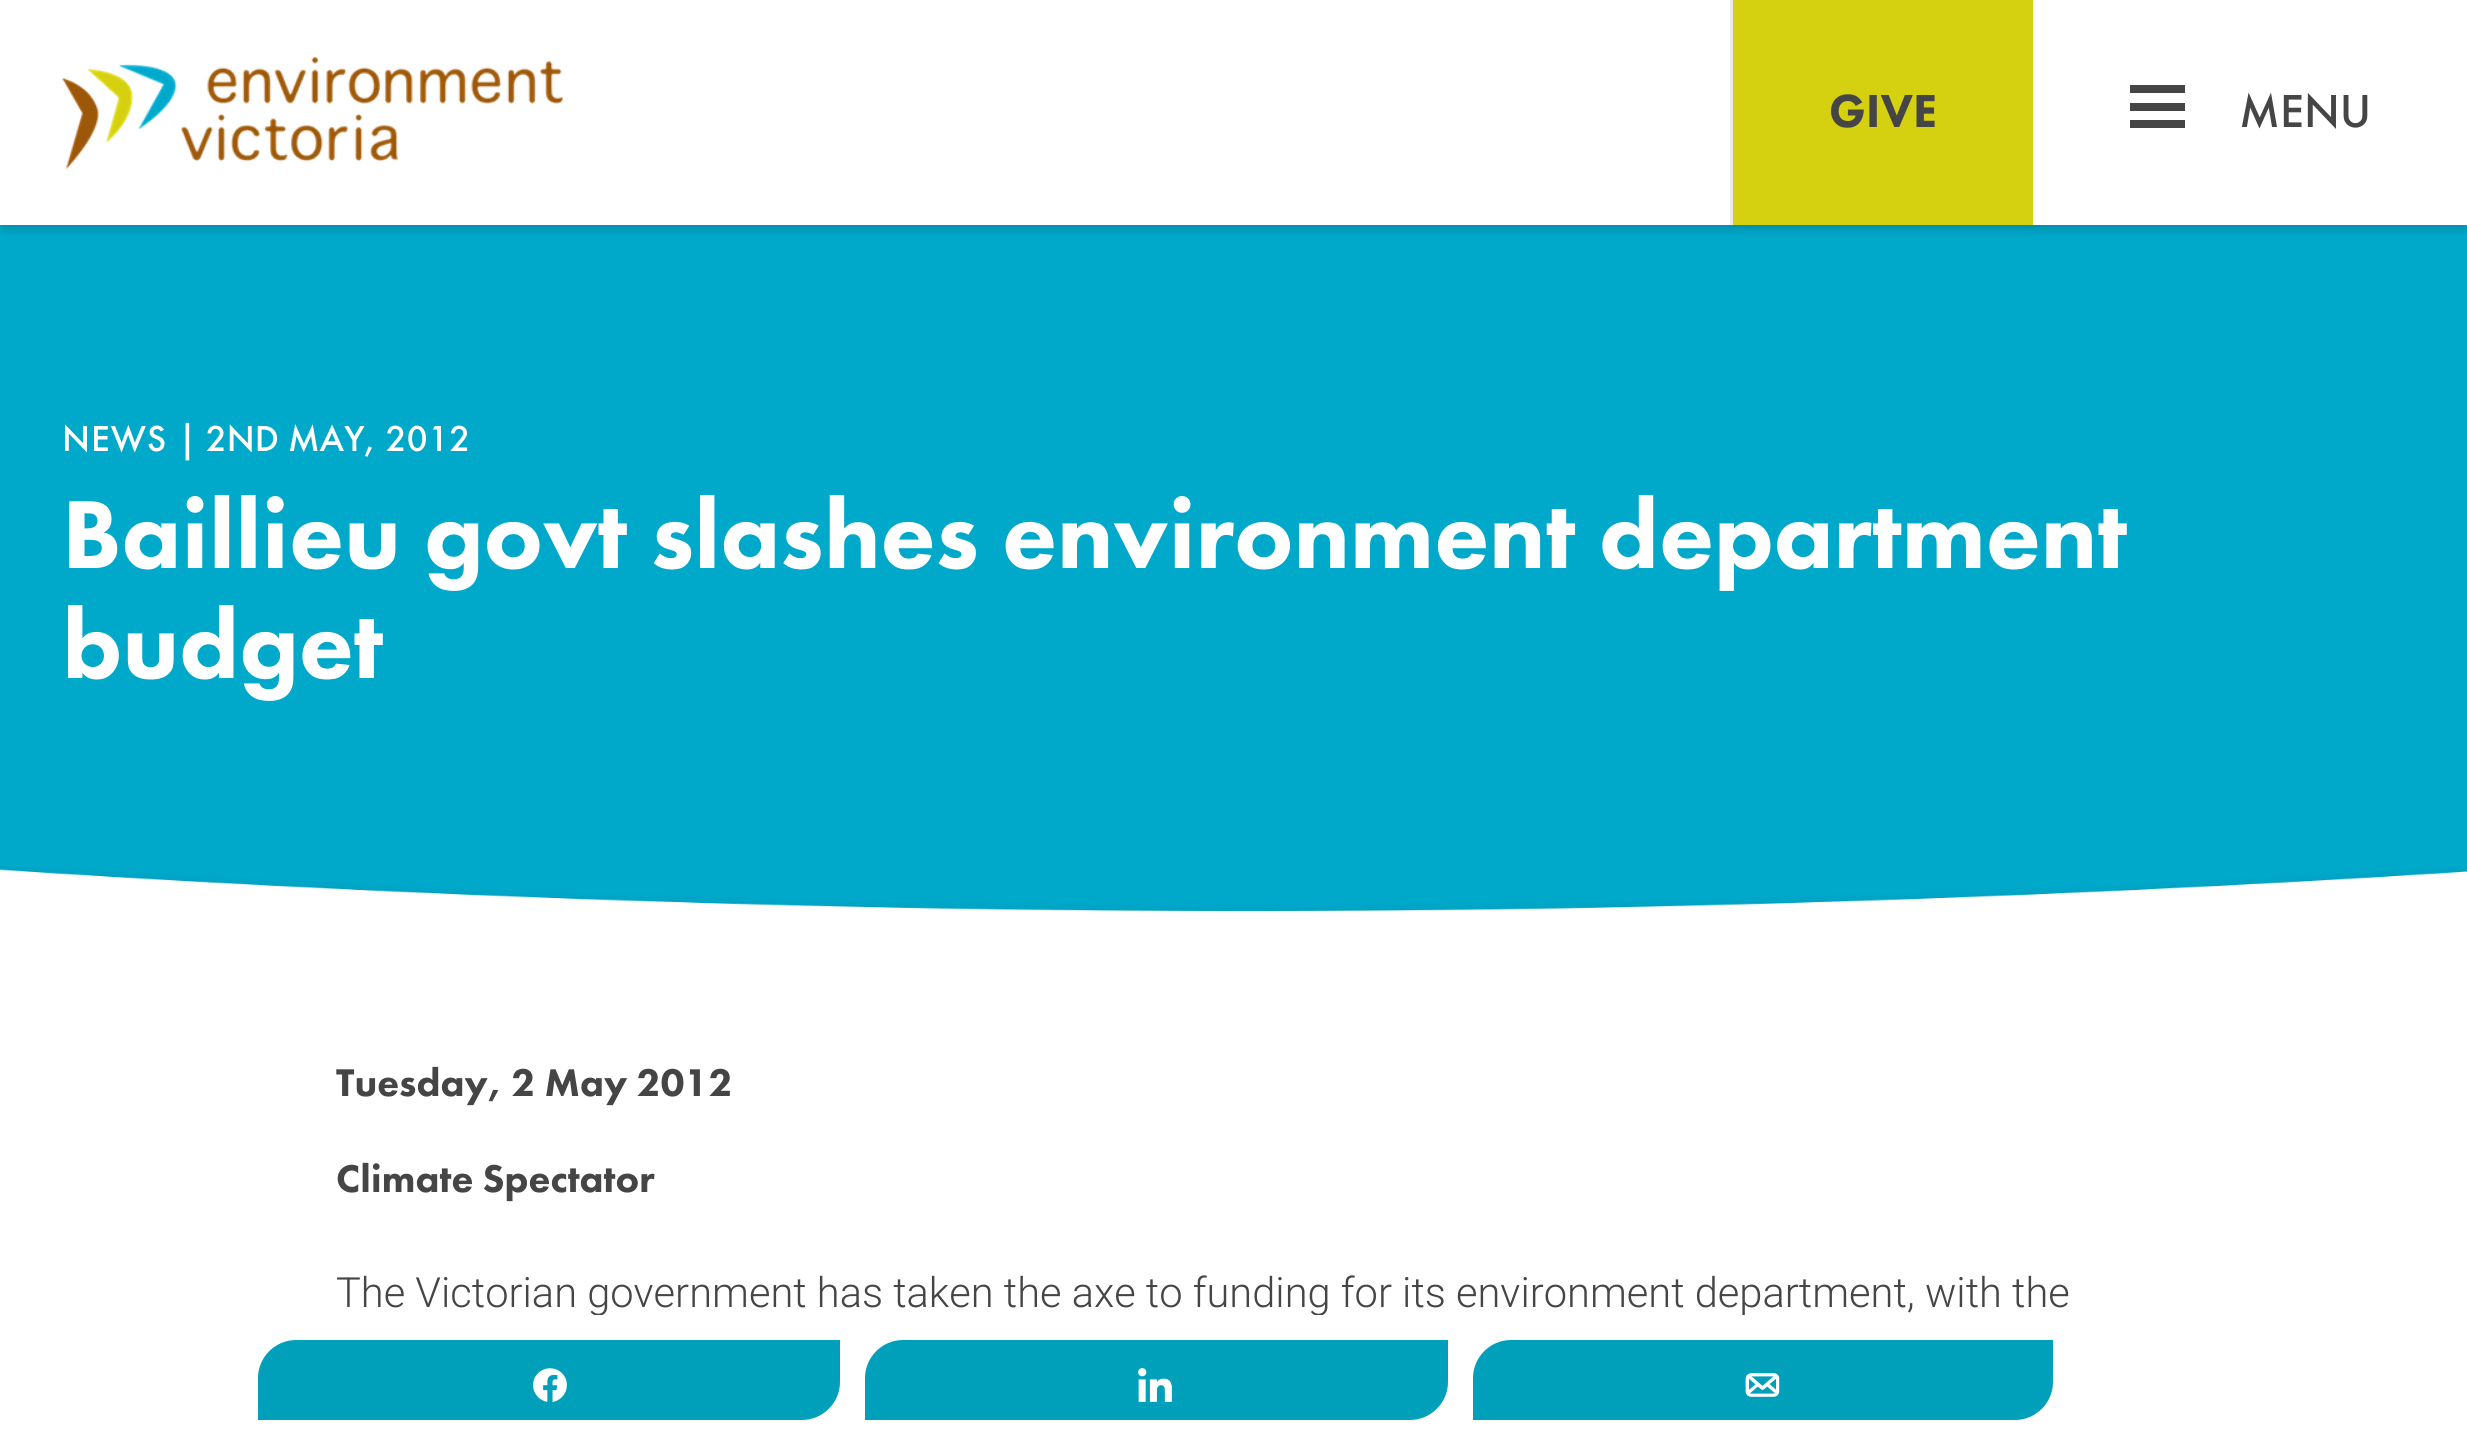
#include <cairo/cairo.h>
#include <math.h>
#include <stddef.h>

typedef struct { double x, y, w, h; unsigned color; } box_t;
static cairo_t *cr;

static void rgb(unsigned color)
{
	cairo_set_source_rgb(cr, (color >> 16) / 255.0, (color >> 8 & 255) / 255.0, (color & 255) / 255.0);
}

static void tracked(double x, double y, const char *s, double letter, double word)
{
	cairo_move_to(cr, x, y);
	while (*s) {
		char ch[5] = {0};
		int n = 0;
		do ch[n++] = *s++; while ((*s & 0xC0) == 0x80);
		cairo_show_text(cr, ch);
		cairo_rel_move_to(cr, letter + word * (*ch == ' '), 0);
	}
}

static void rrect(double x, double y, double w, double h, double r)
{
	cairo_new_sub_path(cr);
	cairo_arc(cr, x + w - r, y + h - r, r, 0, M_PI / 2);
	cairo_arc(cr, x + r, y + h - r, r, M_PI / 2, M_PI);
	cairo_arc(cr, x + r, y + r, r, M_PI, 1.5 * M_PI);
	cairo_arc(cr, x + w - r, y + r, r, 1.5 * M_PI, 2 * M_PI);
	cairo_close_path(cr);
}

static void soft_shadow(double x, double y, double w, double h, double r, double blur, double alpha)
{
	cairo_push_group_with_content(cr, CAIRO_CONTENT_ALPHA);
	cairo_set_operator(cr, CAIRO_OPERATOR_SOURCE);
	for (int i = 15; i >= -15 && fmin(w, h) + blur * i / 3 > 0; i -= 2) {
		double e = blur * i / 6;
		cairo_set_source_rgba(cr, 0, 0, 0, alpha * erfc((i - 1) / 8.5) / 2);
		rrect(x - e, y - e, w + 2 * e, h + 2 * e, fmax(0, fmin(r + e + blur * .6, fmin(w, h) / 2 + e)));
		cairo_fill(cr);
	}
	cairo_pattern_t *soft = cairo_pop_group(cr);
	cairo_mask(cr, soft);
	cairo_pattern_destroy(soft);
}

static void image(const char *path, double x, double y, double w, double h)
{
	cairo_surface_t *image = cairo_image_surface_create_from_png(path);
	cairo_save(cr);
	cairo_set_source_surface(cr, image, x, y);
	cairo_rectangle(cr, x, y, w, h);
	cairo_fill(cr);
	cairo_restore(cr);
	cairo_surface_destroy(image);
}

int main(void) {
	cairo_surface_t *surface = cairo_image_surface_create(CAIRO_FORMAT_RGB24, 2467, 1448);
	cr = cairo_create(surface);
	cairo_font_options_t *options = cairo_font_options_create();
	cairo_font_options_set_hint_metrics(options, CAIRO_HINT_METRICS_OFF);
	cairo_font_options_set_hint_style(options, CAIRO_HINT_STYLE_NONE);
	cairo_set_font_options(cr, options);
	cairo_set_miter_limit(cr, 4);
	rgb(0xffffff);
	cairo_paint(cr);
	rgb(0x00a8ca);
	cairo_rectangle(cr, 0, 225, 2467, 686);
	cairo_fill(cr);
	cairo_save(cr);
	cairo_rectangle(cr, 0, 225, 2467, 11);
	cairo_clip(cr);
	rgb(0x000000);
	soft_shadow(3, 8, 2462, 220, 0, 6, 0.2);
	cairo_restore(cr);
	image("img/1.png", 62, 57, 501, 112);
	{
		static const box_t items[] = {
			{1733, 0, 300, 225, 0xd5d110},
			{1730, 0, 3, 225, 0xeaeaea},
			{2130, 103, 55, 8, 0x454545},
			{2130, 85, 55, 8, 0x454545},
			{2130, 120, 55, 8, 0x454545},
		};
		for (size_t i = 0; i < sizeof items / sizeof *items; i++) {
			rgb(items[i].color);
			cairo_rectangle(cr, items[i].x, items[i].y, items[i].w, items[i].h);
			cairo_fill(cr);
		}
	}
	image("img/2.png", 0, 867, 2467, 46);
	rgb(0x00a0ba);
	cairo_new_path(cr);
	cairo_move_to(cr, 296, 1341.5);
	cairo_line_to(cr, 838.5, 1341.5);
	cairo_line_to(cr, 838.5, 1382);
	cairo_curve_to(cr, 838.5, 1402, 822, 1418.5, 802, 1418.5);
	cairo_line_to(cr, 259.5, 1418.5);
	cairo_line_to(cr, 259.5, 1378);
	cairo_curve_to(cr, 259.5, 1358, 276, 1341.5, 296, 1341.5);
	cairo_close_path(cr);
	cairo_fill_preserve(cr);
	cairo_set_line_width(cr, 3);
	cairo_stroke(cr);
	image("img/3.png", 533, 1368, 34, 34);
	cairo_new_path(cr);
	cairo_move_to(cr, 903, 1341.5);
	cairo_line_to(cr, 1446.5, 1341.5);
	cairo_line_to(cr, 1446.5, 1382);
	cairo_curve_to(cr, 1446.5, 1402, 1430, 1418.5, 1410, 1418.5);
	cairo_line_to(cr, 866.5, 1418.5);
	cairo_line_to(cr, 866.5, 1378);
	cairo_curve_to(cr, 866.5, 1358, 883, 1341.5, 903, 1341.5);
	cairo_close_path(cr);
	cairo_fill_preserve(cr);
	cairo_stroke(cr);
	image("img/4.png", 1138, 1368, 34, 34);
	cairo_new_path(cr);
	cairo_move_to(cr, 1511, 1341.5);
	cairo_line_to(cr, 2051.5, 1341.5);
	cairo_line_to(cr, 2051.5, 1382);
	cairo_curve_to(cr, 2051.5, 1402, 2035, 1418.5, 2015, 1418.5);
	cairo_line_to(cr, 1474.5, 1418.5);
	cairo_line_to(cr, 1474.5, 1378);
	cairo_curve_to(cr, 1474.5, 1358, 1491, 1341.5, 1511, 1341.5);
	cairo_close_path(cr);
	cairo_fill_preserve(cr);
	cairo_stroke(cr);
	image("img/5.png", 1745, 1373, 35, 24);
	cairo_select_font_face(cr, "Futura PT Black", CAIRO_FONT_SLANT_NORMAL, CAIRO_FONT_WEIGHT_NORMAL);
	cairo_set_font_size(cr, 48);
	rgb(0x454545);
	cairo_move_to(cr, 1829, 127);
	cairo_show_text(cr, "GIVE");
	cairo_select_font_face(cr, "Futura PT Medium", CAIRO_FONT_SLANT_NORMAL, CAIRO_FONT_WEIGHT_NORMAL);
	cairo_move_to(cr, 2239, 127);
	cairo_show_text(cr, "MENU");
	cairo_set_font_size(cr, 37.5);
	rgb(0xffffff);
	tracked(62, 451, "NEWS", 1, 0);
	cairo_move_to(cr, 178, 451);
	cairo_show_text(cr, "| 2ND MAY, 2012");
	cairo_select_font_face(cr, "Futura PT Black", CAIRO_FONT_SLANT_NORMAL, CAIRO_FONT_WEIGHT_NORMAL);
	cairo_set_font_size(cr, 100);
	cairo_move_to(cr, 62, 568);
	cairo_show_text(cr, "Baillieu govt slashes environment department");
	cairo_move_to(cr, 62, 678);
	cairo_show_text(cr, "budget");
	cairo_set_font_size(cr, 40);
	rgb(0x454545);
	cairo_move_to(cr, 336, 1096);
	cairo_show_text(cr, "Tuesday, 2 May 2012");
	cairo_move_to(cr, 336, 1192);
	cairo_show_text(cr, "Climate Spectator");
	cairo_select_font_face(cr, "Roboto Light", CAIRO_FONT_SLANT_NORMAL, CAIRO_FONT_WEIGHT_NORMAL);
	cairo_set_font_size(cr, 41.6);
	cairo_move_to(cr, 336, 1307);
	cairo_show_text(cr, "The Victorian government has taken the axe to funding for its environment department, with the");
	rgb(0xffffff);
	cairo_rectangle(cr, 595, 1315, 1150, 1);
	cairo_fill(cr);
	cairo_surface_write_to_png(surface, "page.png");
	cairo_font_options_destroy(options);
	cairo_destroy(cr);
	cairo_surface_destroy(surface);
	return 0;
}
